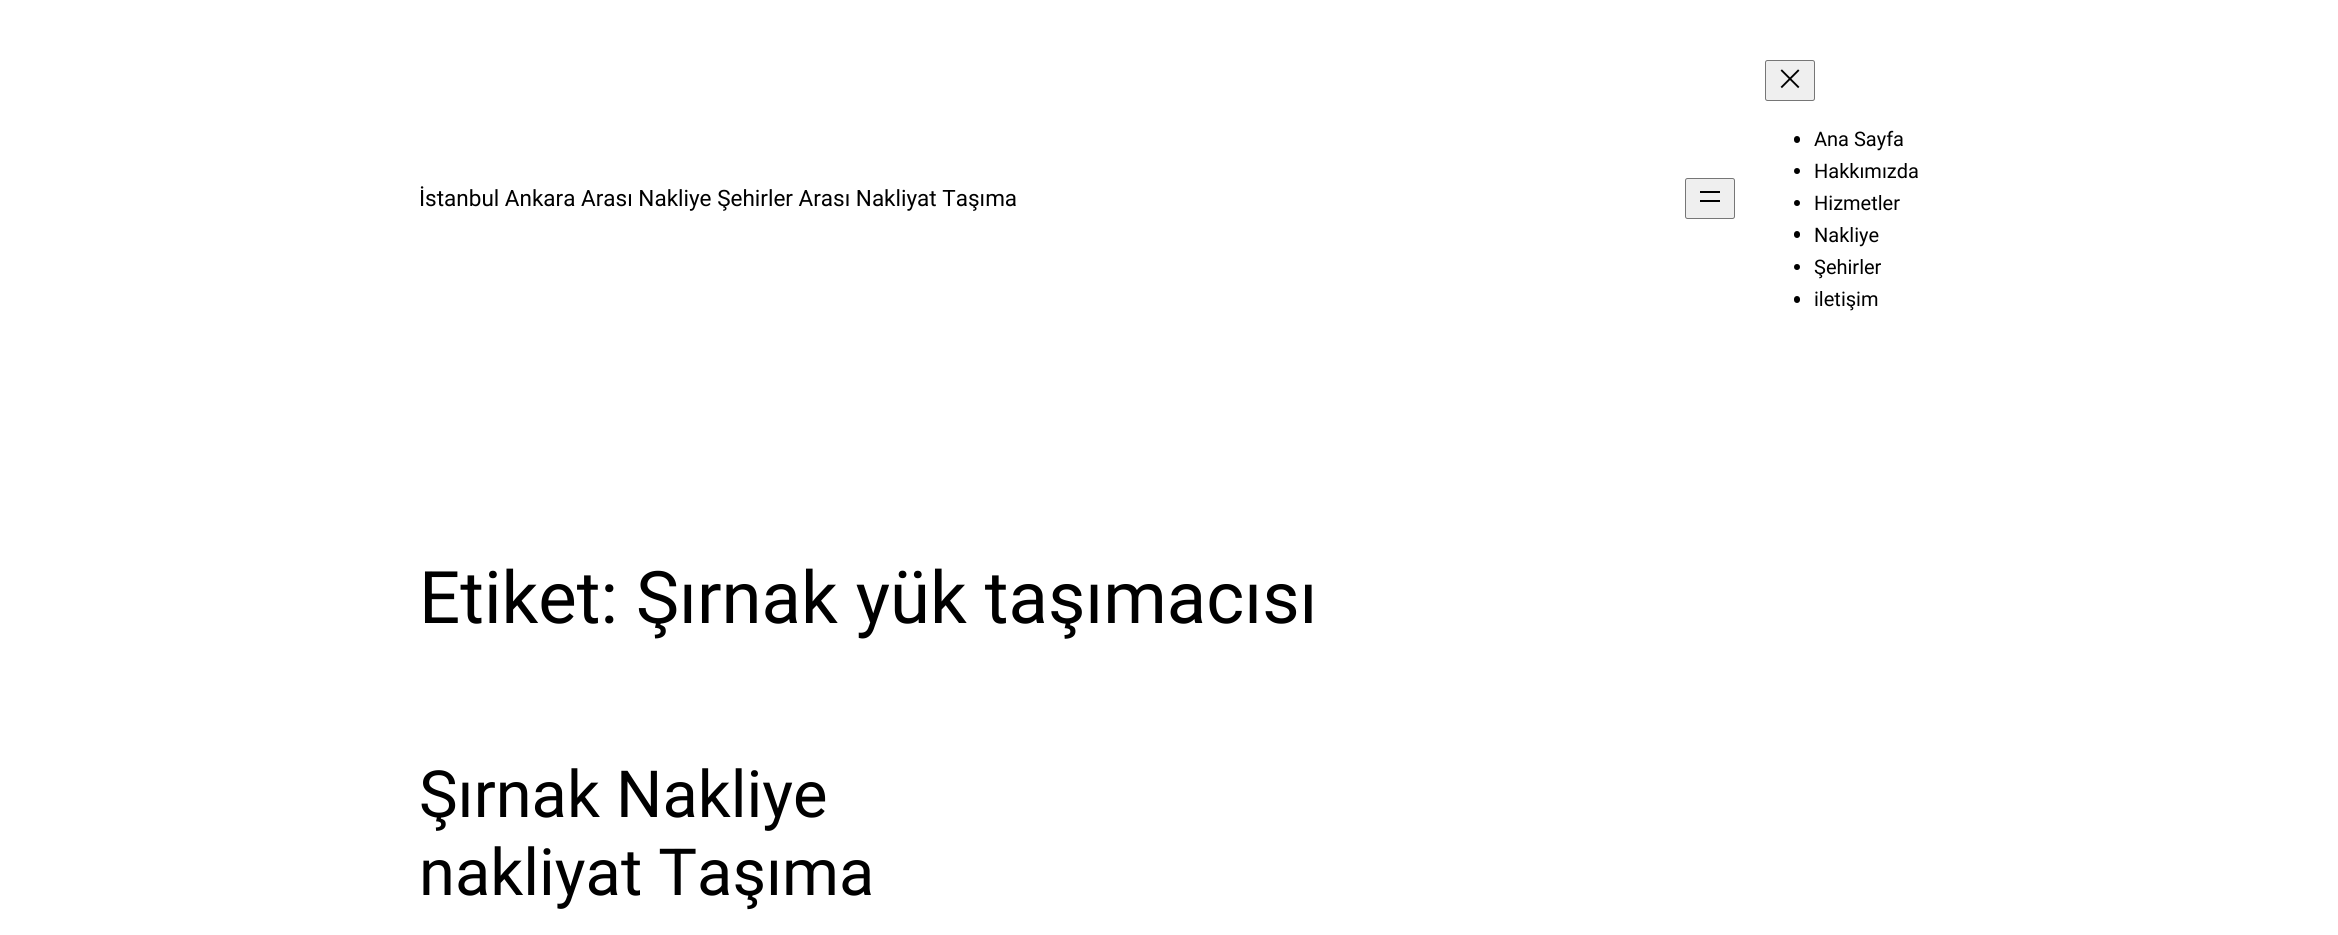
#include <cairo/cairo.h>
#include <math.h>
#include <stddef.h>

typedef struct { double x, y; const char *s; } line_t;
static cairo_t *cr;

static void rgb(unsigned color)
{
	cairo_set_source_rgb(cr, (color >> 16) / 255.0, (color >> 8 & 255) / 255.0, (color & 255) / 255.0);
}

static void rrect(double x, double y, double w, double h, double r)
{
	cairo_new_sub_path(cr);
	cairo_arc(cr, x + w - r, y + h - r, r, 0, M_PI / 2);
	cairo_arc(cr, x + r, y + h - r, r, M_PI / 2, M_PI);
	cairo_arc(cr, x + r, y + r, r, M_PI, 1.5 * M_PI);
	cairo_arc(cr, x + w - r, y + r, r, 1.5 * M_PI, 2 * M_PI);
	cairo_close_path(cr);
}

static void image(const char *path, double x, double y, double w, double h)
{
	cairo_surface_t *image = cairo_image_surface_create_from_png(path);
	cairo_save(cr);
	cairo_set_source_surface(cr, image, x, y);
	cairo_rectangle(cr, x, y, w, h);
	cairo_fill(cr);
	cairo_restore(cr);
	cairo_surface_destroy(image);
}

int main(void) {
	cairo_surface_t *surface = cairo_image_surface_create(CAIRO_FORMAT_RGB24, 2338, 935);
	cr = cairo_create(surface);
	cairo_font_options_t *options = cairo_font_options_create();
	cairo_font_options_set_hint_metrics(options, CAIRO_HINT_METRICS_OFF);
	cairo_font_options_set_hint_style(options, CAIRO_HINT_STYLE_NONE);
	cairo_set_font_options(cr, options);
	cairo_set_miter_limit(cr, 4);
	rgb(0xffffff);
	cairo_paint(cr);
	rgb(0xefefef);
	rrect(1685.5, 178.5, 49, 40, 2);
	cairo_fill_preserve(cr);
	rgb(0x767676);
	cairo_set_line_width(cr, 1);
	cairo_stroke(cr);
	rgb(0x000000);
	cairo_rectangle(cr, 1700, 191, 20, 2);
	cairo_fill(cr);
	cairo_rectangle(cr, 1700, 200, 20, 2);
	cairo_fill(cr);
	rgb(0xefefef);
	rrect(1765.5, 60.5, 49, 40, 2);
	cairo_fill_preserve(cr);
	rgb(0x767676);
	cairo_stroke(cr);
	image("img/1.png", 1780, 69, 20, 20);
	rgb(0x000000);
	rrect(1794, 136, 6, 7, 3);
	cairo_fill(cr);
	cairo_arc(cr, 1797, 171, 3, 0, 2 * M_PI);
	cairo_fill(cr);
	cairo_arc(cr, 1797, 203, 3, 0, 2 * M_PI);
	cairo_fill(cr);
	rrect(1794, 231, 6, 7, 3);
	cairo_fill(cr);
	cairo_arc(cr, 1797, 267, 3, 0, 2 * M_PI);
	cairo_fill(cr);
	rrect(1794, 296, 6, 7, 3);
	cairo_fill(cr);
	cairo_select_font_face(cr, "Roboto", CAIRO_FONT_SLANT_NORMAL, CAIRO_FONT_WEIGHT_NORMAL);
	cairo_set_font_size(cr, 22.5);
	cairo_move_to(cr, 419, 206);
	cairo_show_text(cr, "İstanbul Ankara Arası Nakliye Şehirler Arası Nakliyat Taşıma");
	cairo_set_font_size(cr, 20);
	{
		static const line_t items[] = {
			{1814, 146, "Ana Sayfa"},
			{1814, 178, "Hakkımızda"},
			{1814, 210, "Hizmetler"},
			{1814, 242, "Nakliye"},
			{1814, 274, "Şehirler"},
			{1814, 306, "iletişim"},
		};
		for (size_t i = 0; i < sizeof items / sizeof *items; i++) {
			cairo_move_to(cr, items[i].x, items[i].y);
			cairo_show_text(cr, items[i].s);
		}
	}
	cairo_set_font_size(cr, 72.5);
	cairo_move_to(cr, 419, 623);
	cairo_show_text(cr, "Etiket: Şırnak yük taşımacısı");
	cairo_set_font_size(cr, 65);
	cairo_move_to(cr, 419, 817);
	cairo_show_text(cr, "Şırnak Nakliye");
	cairo_move_to(cr, 419, 895);
	cairo_show_text(cr, "nakliyat Taşıma");
	cairo_surface_write_to_png(surface, "page.png");
	cairo_font_options_destroy(options);
	cairo_destroy(cr);
	cairo_surface_destroy(surface);
	return 0;
}
